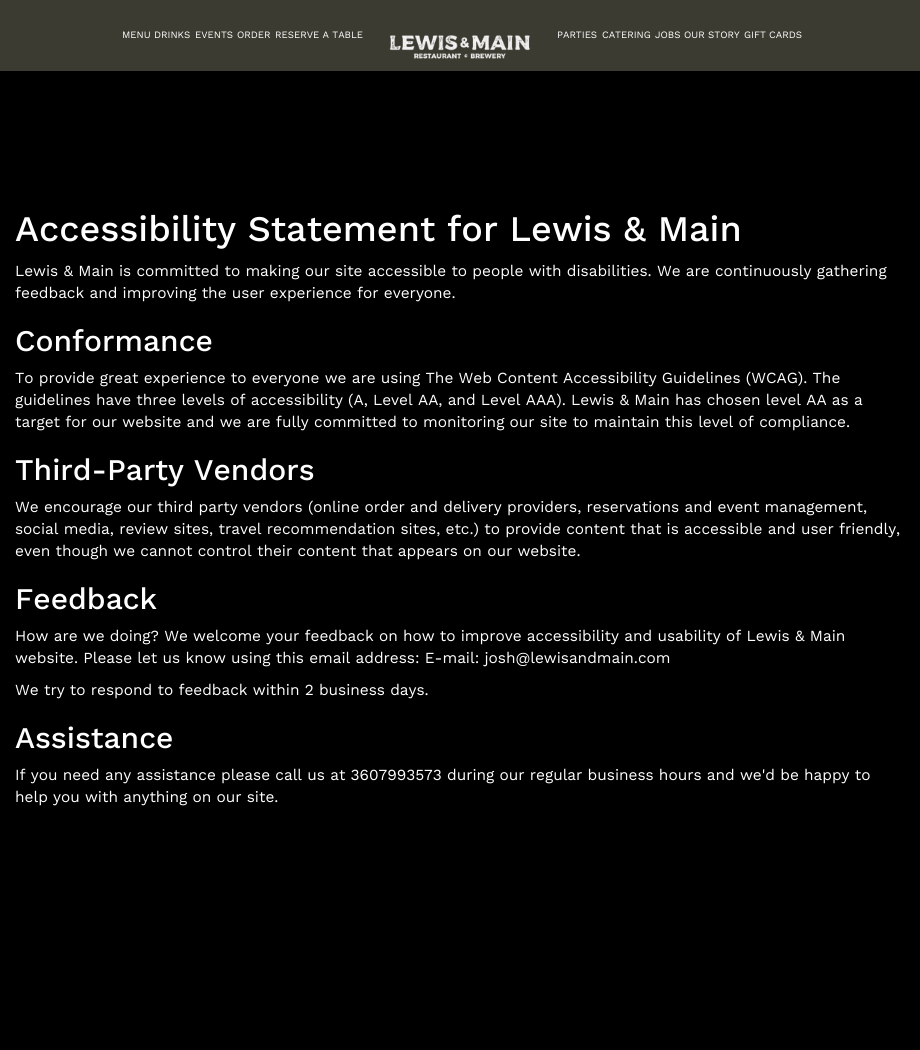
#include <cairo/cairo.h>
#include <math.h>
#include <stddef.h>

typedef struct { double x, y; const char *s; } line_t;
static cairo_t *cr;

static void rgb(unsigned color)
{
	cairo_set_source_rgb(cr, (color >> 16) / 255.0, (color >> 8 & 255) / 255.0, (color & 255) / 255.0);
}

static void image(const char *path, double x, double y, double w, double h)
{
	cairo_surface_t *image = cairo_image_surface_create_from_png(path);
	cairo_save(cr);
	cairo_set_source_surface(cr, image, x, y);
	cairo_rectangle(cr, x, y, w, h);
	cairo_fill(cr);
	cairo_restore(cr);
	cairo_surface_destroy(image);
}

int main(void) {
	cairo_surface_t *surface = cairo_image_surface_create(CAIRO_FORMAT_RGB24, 920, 1050);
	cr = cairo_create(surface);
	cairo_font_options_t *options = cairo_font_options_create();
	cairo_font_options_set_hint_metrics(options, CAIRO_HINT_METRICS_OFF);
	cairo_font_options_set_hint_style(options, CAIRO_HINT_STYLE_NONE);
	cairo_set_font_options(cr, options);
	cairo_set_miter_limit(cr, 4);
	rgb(0x000000);
	cairo_paint(cr);
	rgb(0x3b3b31);
	cairo_rectangle(cr, 0, 0, 920, 71);
	cairo_fill(cr);
	image("img/1.png", 389, 35, 141, 24);
	cairo_select_font_face(cr, "Work Sans", CAIRO_FONT_SLANT_NORMAL, CAIRO_FONT_WEIGHT_NORMAL);
	cairo_set_font_size(cr, 9.75);
	rgb(0xffffff);
	{
		static const line_t items[] = {
			{122, 38, "MENU"},
			{154, 38, "DRINKS"},
			{195, 38, "EVENTS"},
			{237, 38, "ORDER"},
			{275, 38, "RESERVE A TABLE"},
			{557, 38, "PARTIES"},
			{602, 38, "CATERING"},
			{655, 38, "JOBS"},
			{684, 38, "OUR STORY"},
			{744, 38, "GIFT CARDS"},
		};
		for (size_t i = 0; i < sizeof items / sizeof *items; i++) {
			cairo_move_to(cr, items[i].x, items[i].y);
			cairo_show_text(cr, items[i].s);
		}
	}
	cairo_select_font_face(cr, "Work Sans Medium", CAIRO_FONT_SLANT_NORMAL, CAIRO_FONT_WEIGHT_NORMAL);
	cairo_set_font_size(cr, 36);
	cairo_move_to(cr, 15, 241);
	cairo_show_text(cr, "Accessibility Statement for Lewis & Main");
	cairo_select_font_face(cr, "Work Sans", CAIRO_FONT_SLANT_NORMAL, CAIRO_FONT_WEIGHT_NORMAL);
	cairo_set_font_size(cr, 15.4);
	cairo_move_to(cr, 15, 276);
	cairo_show_text(cr, "Lewis & Main is committed to making our site accessible to people with disabilities. We are continuously gathering");
	cairo_move_to(cr, 15, 298);
	cairo_show_text(cr, "feedback and improving the user experience for everyone.");
	cairo_select_font_face(cr, "Work Sans Medium", CAIRO_FONT_SLANT_NORMAL, CAIRO_FONT_WEIGHT_NORMAL);
	cairo_set_font_size(cr, 30);
	cairo_move_to(cr, 15, 351);
	cairo_show_text(cr, "Conformance");
	cairo_select_font_face(cr, "Work Sans", CAIRO_FONT_SLANT_NORMAL, CAIRO_FONT_WEIGHT_NORMAL);
	cairo_set_font_size(cr, 15.4);
	{
		static const line_t items[] = {
			{15, 383, "To provide great experience to everyone we are using The Web Content Accessibility Guidelines (WCAG). The"},
			{15, 405, "guidelines have three levels of accessibility (A, Level AA, and Level AAA). Lewis & Main has chosen level AA as a"},
			{15, 427, "target for our website and we are fully committed to monitoring our site to maintain this level of compliance."},
		};
		for (size_t i = 0; i < sizeof items / sizeof *items; i++) {
			cairo_move_to(cr, items[i].x, items[i].y);
			cairo_show_text(cr, items[i].s);
		}
	}
	cairo_select_font_face(cr, "Work Sans Medium", CAIRO_FONT_SLANT_NORMAL, CAIRO_FONT_WEIGHT_NORMAL);
	cairo_set_font_size(cr, 30);
	cairo_move_to(cr, 15, 480);
	cairo_show_text(cr, "Third-Party Vendors");
	cairo_select_font_face(cr, "Work Sans", CAIRO_FONT_SLANT_NORMAL, CAIRO_FONT_WEIGHT_NORMAL);
	cairo_set_font_size(cr, 15.4);
	{
		static const line_t items[] = {
			{15, 512, "We encourage our third party vendors (online order and delivery providers, reservations and event management,"},
			{15, 534, "social media, review sites, travel recommendation sites, etc.) to provide content that is accessible and user friendly,"},
			{15, 556, "even though we cannot control their content that appears on our website."},
		};
		for (size_t i = 0; i < sizeof items / sizeof *items; i++) {
			cairo_move_to(cr, items[i].x, items[i].y);
			cairo_show_text(cr, items[i].s);
		}
	}
	cairo_select_font_face(cr, "Work Sans Medium", CAIRO_FONT_SLANT_NORMAL, CAIRO_FONT_WEIGHT_NORMAL);
	cairo_set_font_size(cr, 30);
	cairo_move_to(cr, 15, 609);
	cairo_show_text(cr, "Feedback");
	cairo_select_font_face(cr, "Work Sans", CAIRO_FONT_SLANT_NORMAL, CAIRO_FONT_WEIGHT_NORMAL);
	cairo_set_font_size(cr, 15.4);
	{
		static const line_t items[] = {
			{15, 641, "How are we doing? We welcome your feedback on how to improve accessibility and usability of Lewis & Main"},
			{15, 663, "website. Please let us know using this email address: E-mail: josh@lewisandmain.com"},
			{15, 695, "We try to respond to feedback within 2 business days."},
		};
		for (size_t i = 0; i < sizeof items / sizeof *items; i++) {
			cairo_move_to(cr, items[i].x, items[i].y);
			cairo_show_text(cr, items[i].s);
		}
	}
	cairo_select_font_face(cr, "Work Sans Medium", CAIRO_FONT_SLANT_NORMAL, CAIRO_FONT_WEIGHT_NORMAL);
	cairo_set_font_size(cr, 30);
	cairo_move_to(cr, 15, 748);
	cairo_show_text(cr, "Assistance");
	cairo_select_font_face(cr, "Work Sans", CAIRO_FONT_SLANT_NORMAL, CAIRO_FONT_WEIGHT_NORMAL);
	cairo_set_font_size(cr, 15.4);
	cairo_move_to(cr, 15, 780);
	cairo_show_text(cr, "If you need any assistance please call us at 3607993573 during our regular business hours and we'd be happy to");
	cairo_move_to(cr, 15, 802);
	cairo_show_text(cr, "help you with anything on our site.");
	cairo_surface_write_to_png(surface, "page.png");
	cairo_font_options_destroy(options);
	cairo_destroy(cr);
	cairo_surface_destroy(surface);
	return 0;
}
